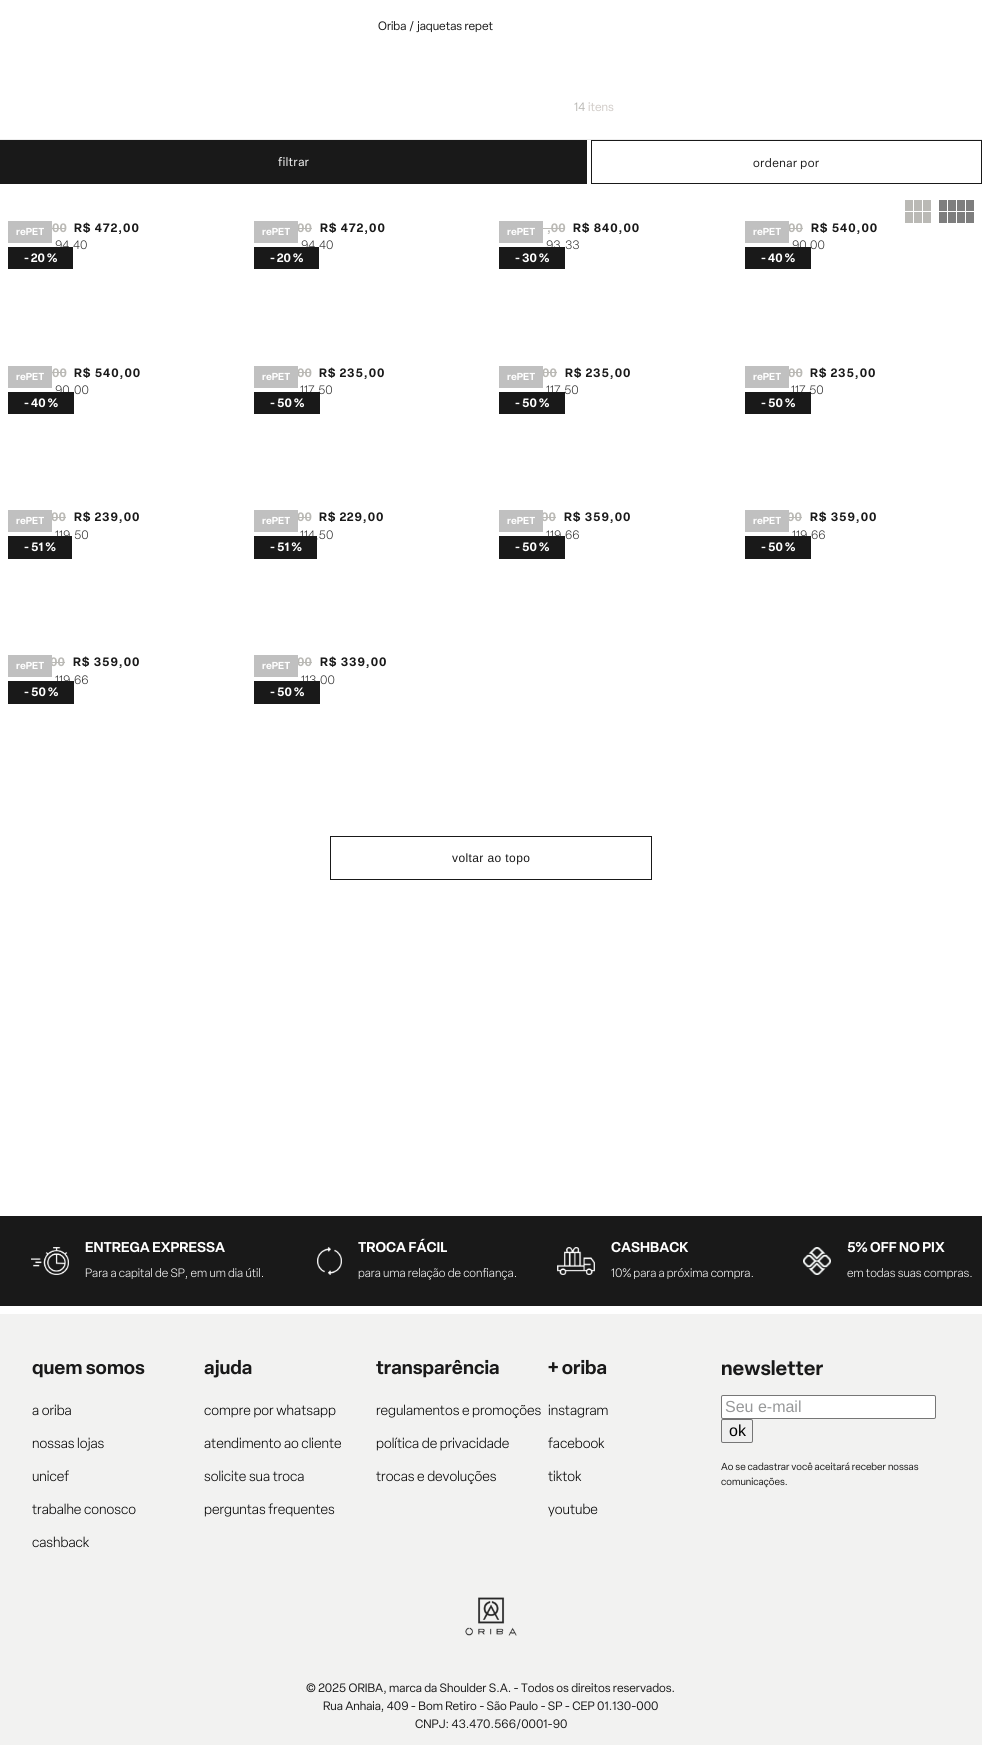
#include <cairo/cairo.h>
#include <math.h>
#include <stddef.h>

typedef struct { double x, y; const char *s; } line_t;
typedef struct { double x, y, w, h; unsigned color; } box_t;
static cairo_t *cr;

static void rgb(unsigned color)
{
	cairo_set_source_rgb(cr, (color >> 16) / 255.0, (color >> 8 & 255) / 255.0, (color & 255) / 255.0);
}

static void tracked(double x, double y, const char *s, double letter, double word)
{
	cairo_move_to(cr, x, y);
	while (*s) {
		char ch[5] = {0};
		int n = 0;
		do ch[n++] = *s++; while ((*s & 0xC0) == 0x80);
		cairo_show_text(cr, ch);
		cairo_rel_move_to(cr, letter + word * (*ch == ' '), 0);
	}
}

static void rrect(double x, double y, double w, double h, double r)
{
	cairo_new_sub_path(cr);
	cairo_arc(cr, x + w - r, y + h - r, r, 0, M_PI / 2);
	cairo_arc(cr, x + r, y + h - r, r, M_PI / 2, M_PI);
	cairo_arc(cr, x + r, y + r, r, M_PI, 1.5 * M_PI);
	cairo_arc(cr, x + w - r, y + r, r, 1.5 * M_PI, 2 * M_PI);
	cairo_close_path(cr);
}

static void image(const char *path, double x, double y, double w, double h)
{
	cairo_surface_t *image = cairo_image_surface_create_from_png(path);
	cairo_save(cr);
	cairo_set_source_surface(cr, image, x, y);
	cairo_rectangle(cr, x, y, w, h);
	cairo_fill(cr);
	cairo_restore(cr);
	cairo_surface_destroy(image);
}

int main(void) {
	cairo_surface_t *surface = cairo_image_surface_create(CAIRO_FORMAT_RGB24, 982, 1745);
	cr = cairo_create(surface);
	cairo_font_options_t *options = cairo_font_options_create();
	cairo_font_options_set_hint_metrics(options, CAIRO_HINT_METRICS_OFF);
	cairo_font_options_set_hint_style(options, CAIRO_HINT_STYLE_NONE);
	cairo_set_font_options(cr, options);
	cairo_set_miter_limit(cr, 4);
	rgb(0xffffff);
	cairo_paint(cr);
	rgb(0xededed);
	cairo_rectangle(cr, 0, 139, 982, 1);
	cairo_fill(cr);
	rgb(0x191919);
	cairo_rectangle(cr, 0, 140, 587, 44);
	cairo_fill(cr);
	cairo_rectangle(cr, 591.5, 140.5, 390, 43);
	cairo_set_line_width(cr, 1);
	cairo_stroke(cr);
	image("img/1.png", 905, 200, 26, 23);
	image("img/2.png", 939, 200, 35, 23);
	{
		static const box_t items[] = {
			{8, 221, 44, 22, 0xc0c0c0},
			{52, 228, 14, 1, 0xbab9b5},
			{297, 228, 15, 1, 0xbab9b5},
			{499, 221, 44, 22, 0xc0c0c0},
			{543, 228, 7, 1, 0xbab9b5},
			{550, 228, 15, 1, 0xbab9b5},
			{788, 228, 15, 1, 0xbab9b5},
			{8, 366, 44, 22, 0xc0c0c0},
			{52, 372, 14, 1, 0xbab9b5},
			{297, 372, 14, 1, 0xbab9b5},
			{542, 372, 15, 1, 0xbab9b5},
			{788, 372, 14, 1, 0xbab9b5},
			{51, 517, 15, 1, 0xbab9b5},
			{297, 517, 14, 1, 0xbab9b5},
			{541, 517, 15, 1, 0xbab9b5},
			{787, 517, 15, 1, 0xbab9b5},
			{50, 662, 15, 1, 0xbab9b5},
			{297, 662, 15, 1, 0xbab9b5},
		};
		for (size_t i = 0; i < sizeof items / sizeof *items; i++) {
			rgb(items[i].color);
			cairo_rectangle(cr, items[i].x, items[i].y, items[i].w, items[i].h);
			cairo_fill(cr);
		}
	}
	cairo_rectangle(cr, 330.5, 836.5, 321, 43);
	rgb(0x191919);
	cairo_stroke(cr);
	rgb(0xf2f2f1);
	cairo_rectangle(cr, 0, 1314, 982, 431);
	cairo_fill(cr);
	rgb(0x191919);
	cairo_rectangle(cr, 0, 1216, 982, 90);
	cairo_fill(cr);
	image("img/3.png", 31, 1247, 38, 28);
	image("img/4.png", 317, 1247, 25, 28);
	image("img/5.png", 557, 1247, 38, 28);
	image("img/6.png", 803, 1247, 28, 28);
	rgb(0xffffff);
	rrect(721.5, 1395.5, 214, 23, 1.5);
	cairo_fill_preserve(cr);
	rgb(0x767676);
	cairo_stroke(cr);
	rgb(0xefefef);
	rrect(721.5, 1419.5, 31, 23, 1.5);
	cairo_fill_preserve(cr);
	rgb(0x767676);
	cairo_stroke(cr);
	image("img/7.png", 465, 1597, 52, 39);
	cairo_select_font_face(cr, "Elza", CAIRO_FONT_SLANT_NORMAL, CAIRO_FONT_WEIGHT_NORMAL);
	cairo_set_font_size(cr, 12);
	rgb(0x191919);
	{
		static const line_t items[] = {
			{378, 30, "Oriba"},
			{409, 30, "/"},
			{417, 30, "jaquetas repet"},
		};
		for (size_t i = 0; i < sizeof items / sizeof *items; i++) {
			cairo_move_to(cr, items[i].x, items[i].y);
			cairo_show_text(cr, items[i].s);
		}
	}
	rgb(0xbab9b5);
	cairo_move_to(cr, 574, 111);
	cairo_show_text(cr, "14");
	rgb(0xd0cbc7);
	cairo_move_to(cr, 588, 111);
	cairo_show_text(cr, "itens");
	rgb(0xffffff);
	tracked(278, 166, "filtrar", 0.5, 0);
	rgb(0x191919);
	tracked(753, 167, "ordenar por", 0.5, 0);
	cairo_select_font_face(cr, "Elza SemiBold", CAIRO_FONT_SLANT_NORMAL, CAIRO_FONT_WEIGHT_NORMAL);
	cairo_set_font_size(cr, 10);
	rgb(0xffffff);
	cairo_move_to(cr, 16, 235);
	cairo_show_text(cr, "rePET");
	cairo_set_font_size(cr, 12);
	rgb(0xbab9b5);
	cairo_move_to(cr, 52, 232);
	cairo_show_text(cr, "00");
	rgb(0x191919);
	tracked(74, 232, "R$ 472,00", 1, 0);
	cairo_select_font_face(cr, "Elza Light", CAIRO_FONT_SLANT_NORMAL, CAIRO_FONT_WEIGHT_NORMAL);
	rgb(0x2e2e2e);
	cairo_move_to(cr, 55, 249);
	cairo_show_text(cr, "94");
	rgb(0x191919);
	cairo_rectangle(cr, 8, 247, 65, 22);
	cairo_fill(cr);
	cairo_select_font_face(cr, "Elza SemiBold", CAIRO_FONT_SLANT_NORMAL, CAIRO_FONT_WEIGHT_NORMAL);
	rgb(0xffffff);
	cairo_move_to(cr, 24, 262);
	cairo_show_text(cr, "- 20 %");
	cairo_select_font_face(cr, "Elza Light", CAIRO_FONT_SLANT_NORMAL, CAIRO_FONT_WEIGHT_NORMAL);
	rgb(0x2e2e2e);
	cairo_move_to(cr, 73, 249);
	cairo_show_text(cr, "40");
	cairo_select_font_face(cr, "Elza SemiBold", CAIRO_FONT_SLANT_NORMAL, CAIRO_FONT_WEIGHT_NORMAL);
	rgb(0xbab9b5);
	cairo_move_to(cr, 297, 232);
	cairo_show_text(cr, "00");
	rgb(0xc0c0c0);
	cairo_rectangle(cr, 254, 221, 44, 22);
	cairo_fill(cr);
	cairo_set_font_size(cr, 10);
	rgb(0xffffff);
	cairo_move_to(cr, 262, 235);
	cairo_show_text(cr, "rePET");
	cairo_set_font_size(cr, 12);
	rgb(0x191919);
	tracked(320, 232, "R$ 472,00", 1, 0);
	cairo_select_font_face(cr, "Elza Light", CAIRO_FONT_SLANT_NORMAL, CAIRO_FONT_WEIGHT_NORMAL);
	rgb(0x2e2e2e);
	cairo_move_to(cr, 301, 249);
	cairo_show_text(cr, "94");
	rgb(0x191919);
	cairo_rectangle(cr, 254, 247, 65, 22);
	cairo_fill(cr);
	cairo_select_font_face(cr, "Elza SemiBold", CAIRO_FONT_SLANT_NORMAL, CAIRO_FONT_WEIGHT_NORMAL);
	rgb(0xffffff);
	cairo_move_to(cr, 270, 262);
	cairo_show_text(cr, "- 20 %");
	cairo_select_font_face(cr, "Elza Light", CAIRO_FONT_SLANT_NORMAL, CAIRO_FONT_WEIGHT_NORMAL);
	rgb(0x2e2e2e);
	cairo_move_to(cr, 319, 249);
	cairo_show_text(cr, "40");
	cairo_select_font_face(cr, "Elza SemiBold", CAIRO_FONT_SLANT_NORMAL, CAIRO_FONT_WEIGHT_NORMAL);
	cairo_set_font_size(cr, 10);
	rgb(0xffffff);
	cairo_move_to(cr, 507, 235);
	cairo_show_text(cr, "rePET");
	cairo_set_font_size(cr, 12);
	rgb(0xbab9b5);
	cairo_move_to(cr, 547, 232);
	cairo_show_text(cr, ",00");
	rgb(0x191919);
	tracked(573, 232, "R$ 840,00", 1, 0);
	cairo_select_font_face(cr, "Elza Light", CAIRO_FONT_SLANT_NORMAL, CAIRO_FONT_WEIGHT_NORMAL);
	rgb(0x2e2e2e);
	cairo_move_to(cr, 546, 249);
	cairo_show_text(cr, "93");
	rgb(0x191919);
	cairo_rectangle(cr, 499, 247, 66, 22);
	cairo_fill(cr);
	cairo_select_font_face(cr, "Elza SemiBold", CAIRO_FONT_SLANT_NORMAL, CAIRO_FONT_WEIGHT_NORMAL);
	rgb(0xffffff);
	cairo_move_to(cr, 515, 262);
	cairo_show_text(cr, "- 30 %");
	cairo_select_font_face(cr, "Elza Light", CAIRO_FONT_SLANT_NORMAL, CAIRO_FONT_WEIGHT_NORMAL);
	rgb(0x2e2e2e);
	cairo_move_to(cr, 565, 249);
	cairo_show_text(cr, "33");
	cairo_select_font_face(cr, "Elza SemiBold", CAIRO_FONT_SLANT_NORMAL, CAIRO_FONT_WEIGHT_NORMAL);
	rgb(0xbab9b5);
	cairo_move_to(cr, 788, 232);
	cairo_show_text(cr, "00");
	rgb(0xc0c0c0);
	cairo_rectangle(cr, 745, 221, 44, 22);
	cairo_fill(cr);
	cairo_set_font_size(cr, 10);
	rgb(0xffffff);
	cairo_move_to(cr, 753, 235);
	cairo_show_text(cr, "rePET");
	cairo_set_font_size(cr, 12);
	rgb(0x191919);
	tracked(811, 232, "R$ 540,00", 1, 0);
	cairo_select_font_face(cr, "Elza Light", CAIRO_FONT_SLANT_NORMAL, CAIRO_FONT_WEIGHT_NORMAL);
	rgb(0x2e2e2e);
	cairo_move_to(cr, 792, 249);
	cairo_show_text(cr, "90");
	cairo_move_to(cr, 810, 249);
	cairo_show_text(cr, "00");
	rgb(0x191919);
	cairo_rectangle(cr, 745, 247, 66, 22);
	cairo_fill(cr);
	cairo_select_font_face(cr, "Elza SemiBold", CAIRO_FONT_SLANT_NORMAL, CAIRO_FONT_WEIGHT_NORMAL);
	rgb(0xffffff);
	cairo_move_to(cr, 761, 262);
	cairo_show_text(cr, "- 40 %");
	cairo_set_font_size(cr, 10);
	cairo_move_to(cr, 16, 380);
	cairo_show_text(cr, "rePET");
	cairo_set_font_size(cr, 12);
	rgb(0xbab9b5);
	cairo_move_to(cr, 52, 377);
	cairo_show_text(cr, "00");
	rgb(0x191919);
	tracked(74, 377, "R$ 540,00", 1, 0);
	cairo_select_font_face(cr, "Elza Light", CAIRO_FONT_SLANT_NORMAL, CAIRO_FONT_WEIGHT_NORMAL);
	rgb(0x2e2e2e);
	cairo_move_to(cr, 55, 394);
	cairo_show_text(cr, "90");
	rgb(0x191919);
	cairo_rectangle(cr, 8, 392, 66, 22);
	cairo_fill(cr);
	cairo_select_font_face(cr, "Elza SemiBold", CAIRO_FONT_SLANT_NORMAL, CAIRO_FONT_WEIGHT_NORMAL);
	rgb(0xffffff);
	cairo_move_to(cr, 24, 407);
	cairo_show_text(cr, "- 40 %");
	cairo_select_font_face(cr, "Elza Light", CAIRO_FONT_SLANT_NORMAL, CAIRO_FONT_WEIGHT_NORMAL);
	rgb(0x2e2e2e);
	cairo_move_to(cr, 74, 394);
	cairo_show_text(cr, "00");
	cairo_select_font_face(cr, "Elza SemiBold", CAIRO_FONT_SLANT_NORMAL, CAIRO_FONT_WEIGHT_NORMAL);
	rgb(0xbab9b5);
	cairo_move_to(cr, 297, 377);
	cairo_show_text(cr, "00");
	rgb(0xc0c0c0);
	cairo_rectangle(cr, 254, 366, 44, 22);
	cairo_fill(cr);
	cairo_set_font_size(cr, 10);
	rgb(0xffffff);
	cairo_move_to(cr, 262, 380);
	cairo_show_text(cr, "rePET");
	cairo_set_font_size(cr, 12);
	rgb(0x191919);
	tracked(319, 377, "R$ 235,00", 1, 0);
	cairo_select_font_face(cr, "Elza Light", CAIRO_FONT_SLANT_NORMAL, CAIRO_FONT_WEIGHT_NORMAL);
	rgb(0x2e2e2e);
	cairo_move_to(cr, 300, 394);
	cairo_show_text(cr, "117");
	cairo_move_to(cr, 318, 394);
	cairo_show_text(cr, "50");
	rgb(0x191919);
	cairo_rectangle(cr, 254, 392, 66, 22);
	cairo_fill(cr);
	cairo_select_font_face(cr, "Elza SemiBold", CAIRO_FONT_SLANT_NORMAL, CAIRO_FONT_WEIGHT_NORMAL);
	rgb(0xffffff);
	cairo_move_to(cr, 270, 407);
	cairo_show_text(cr, "- 50 %");
	rgb(0xbab9b5);
	cairo_move_to(cr, 542, 377);
	cairo_show_text(cr, "00");
	rgb(0xc0c0c0);
	cairo_rectangle(cr, 499, 366, 44, 22);
	cairo_fill(cr);
	cairo_set_font_size(cr, 10);
	rgb(0xffffff);
	cairo_move_to(cr, 507, 380);
	cairo_show_text(cr, "rePET");
	cairo_set_font_size(cr, 12);
	rgb(0x191919);
	tracked(565, 377, "R$ 235,00", 1, 0);
	cairo_select_font_face(cr, "Elza Light", CAIRO_FONT_SLANT_NORMAL, CAIRO_FONT_WEIGHT_NORMAL);
	rgb(0x2e2e2e);
	cairo_move_to(cr, 546, 394);
	cairo_show_text(cr, "117");
	cairo_move_to(cr, 564, 394);
	cairo_show_text(cr, "50");
	rgb(0x191919);
	cairo_rectangle(cr, 499, 392, 66, 22);
	cairo_fill(cr);
	cairo_select_font_face(cr, "Elza SemiBold", CAIRO_FONT_SLANT_NORMAL, CAIRO_FONT_WEIGHT_NORMAL);
	rgb(0xffffff);
	cairo_move_to(cr, 515, 407);
	cairo_show_text(cr, "- 50 %");
	rgb(0xbab9b5);
	cairo_move_to(cr, 788, 377);
	cairo_show_text(cr, "00");
	rgb(0xc0c0c0);
	cairo_rectangle(cr, 745, 366, 44, 22);
	cairo_fill(cr);
	cairo_set_font_size(cr, 10);
	rgb(0xffffff);
	cairo_move_to(cr, 753, 380);
	cairo_show_text(cr, "rePET");
	cairo_set_font_size(cr, 12);
	rgb(0x191919);
	tracked(810, 377, "R$ 235,00", 1, 0);
	cairo_select_font_face(cr, "Elza Light", CAIRO_FONT_SLANT_NORMAL, CAIRO_FONT_WEIGHT_NORMAL);
	rgb(0x2e2e2e);
	cairo_move_to(cr, 791, 394);
	cairo_show_text(cr, "117");
	cairo_move_to(cr, 809, 394);
	cairo_show_text(cr, "50");
	rgb(0x191919);
	cairo_rectangle(cr, 745, 392, 66, 22);
	cairo_fill(cr);
	cairo_select_font_face(cr, "Elza SemiBold", CAIRO_FONT_SLANT_NORMAL, CAIRO_FONT_WEIGHT_NORMAL);
	rgb(0xffffff);
	cairo_move_to(cr, 761, 407);
	cairo_show_text(cr, "- 50 %");
	rgb(0xbab9b5);
	cairo_move_to(cr, 51, 521);
	cairo_show_text(cr, "00");
	rgb(0xc0c0c0);
	cairo_rectangle(cr, 8, 510, 44, 22);
	cairo_fill(cr);
	cairo_set_font_size(cr, 10);
	rgb(0xffffff);
	cairo_move_to(cr, 16, 524);
	cairo_show_text(cr, "rePET");
	cairo_set_font_size(cr, 12);
	rgb(0x191919);
	tracked(74, 521, "R$ 239,00", 1, 0);
	cairo_select_font_face(cr, "Elza Light", CAIRO_FONT_SLANT_NORMAL, CAIRO_FONT_WEIGHT_NORMAL);
	rgb(0x2e2e2e);
	cairo_move_to(cr, 55, 539);
	cairo_show_text(cr, "119");
	rgb(0x191919);
	cairo_rectangle(cr, 8, 536, 64, 23);
	cairo_fill(cr);
	cairo_select_font_face(cr, "Elza SemiBold", CAIRO_FONT_SLANT_NORMAL, CAIRO_FONT_WEIGHT_NORMAL);
	rgb(0xffffff);
	cairo_move_to(cr, 24, 551);
	cairo_show_text(cr, "- 51 %");
	cairo_select_font_face(cr, "Elza Light", CAIRO_FONT_SLANT_NORMAL, CAIRO_FONT_WEIGHT_NORMAL);
	rgb(0x2e2e2e);
	cairo_move_to(cr, 74, 539);
	cairo_show_text(cr, "50");
	cairo_select_font_face(cr, "Elza SemiBold", CAIRO_FONT_SLANT_NORMAL, CAIRO_FONT_WEIGHT_NORMAL);
	rgb(0xbab9b5);
	cairo_move_to(cr, 297, 521);
	cairo_show_text(cr, "00");
	rgb(0xc0c0c0);
	cairo_rectangle(cr, 254, 510, 44, 22);
	cairo_fill(cr);
	cairo_set_font_size(cr, 10);
	rgb(0xffffff);
	cairo_move_to(cr, 262, 524);
	cairo_show_text(cr, "rePET");
	cairo_set_font_size(cr, 12);
	rgb(0x191919);
	tracked(319, 521, "R$ 229,00", 1, 0);
	cairo_select_font_face(cr, "Elza Light", CAIRO_FONT_SLANT_NORMAL, CAIRO_FONT_WEIGHT_NORMAL);
	rgb(0x2e2e2e);
	cairo_move_to(cr, 300, 539);
	cairo_show_text(cr, "114,50");
	rgb(0x191919);
	cairo_rectangle(cr, 254, 536, 63, 23);
	cairo_fill(cr);
	cairo_select_font_face(cr, "Elza SemiBold", CAIRO_FONT_SLANT_NORMAL, CAIRO_FONT_WEIGHT_NORMAL);
	rgb(0xffffff);
	cairo_move_to(cr, 270, 551);
	cairo_show_text(cr, "- 51 %");
	rgb(0xbab9b5);
	cairo_move_to(cr, 541, 521);
	cairo_show_text(cr, "00");
	rgb(0xc0c0c0);
	cairo_rectangle(cr, 499, 510, 44, 22);
	cairo_fill(cr);
	cairo_set_font_size(cr, 10);
	rgb(0xffffff);
	cairo_move_to(cr, 507, 524);
	cairo_show_text(cr, "rePET");
	cairo_set_font_size(cr, 12);
	rgb(0x191919);
	tracked(564, 521, "R$ 359,00", 1, 0);
	cairo_select_font_face(cr, "Elza Light", CAIRO_FONT_SLANT_NORMAL, CAIRO_FONT_WEIGHT_NORMAL);
	rgb(0x2e2e2e);
	cairo_move_to(cr, 546, 539);
	cairo_show_text(cr, "119");
	rgb(0x191919);
	cairo_rectangle(cr, 499, 536, 66, 23);
	cairo_fill(cr);
	cairo_select_font_face(cr, "Elza SemiBold", CAIRO_FONT_SLANT_NORMAL, CAIRO_FONT_WEIGHT_NORMAL);
	rgb(0xffffff);
	cairo_move_to(cr, 515, 551);
	cairo_show_text(cr, "- 50 %");
	cairo_select_font_face(cr, "Elza Light", CAIRO_FONT_SLANT_NORMAL, CAIRO_FONT_WEIGHT_NORMAL);
	rgb(0x2e2e2e);
	cairo_move_to(cr, 565, 539);
	cairo_show_text(cr, "66");
	cairo_select_font_face(cr, "Elza SemiBold", CAIRO_FONT_SLANT_NORMAL, CAIRO_FONT_WEIGHT_NORMAL);
	rgb(0xbab9b5);
	cairo_move_to(cr, 787, 521);
	cairo_show_text(cr, "00");
	rgb(0xc0c0c0);
	cairo_rectangle(cr, 745, 510, 44, 22);
	cairo_fill(cr);
	cairo_set_font_size(cr, 10);
	rgb(0xffffff);
	cairo_move_to(cr, 753, 524);
	cairo_show_text(cr, "rePET");
	cairo_set_font_size(cr, 12);
	rgb(0x191919);
	tracked(810, 521, "R$ 359,00", 1, 0);
	cairo_select_font_face(cr, "Elza Light", CAIRO_FONT_SLANT_NORMAL, CAIRO_FONT_WEIGHT_NORMAL);
	rgb(0x2e2e2e);
	cairo_move_to(cr, 792, 539);
	cairo_show_text(cr, "119");
	rgb(0x191919);
	cairo_rectangle(cr, 745, 536, 66, 23);
	cairo_fill(cr);
	cairo_select_font_face(cr, "Elza SemiBold", CAIRO_FONT_SLANT_NORMAL, CAIRO_FONT_WEIGHT_NORMAL);
	rgb(0xffffff);
	cairo_move_to(cr, 761, 551);
	cairo_show_text(cr, "- 50 %");
	cairo_select_font_face(cr, "Elza Light", CAIRO_FONT_SLANT_NORMAL, CAIRO_FONT_WEIGHT_NORMAL);
	rgb(0x2e2e2e);
	cairo_move_to(cr, 811, 539);
	cairo_show_text(cr, "66");
	cairo_select_font_face(cr, "Elza SemiBold", CAIRO_FONT_SLANT_NORMAL, CAIRO_FONT_WEIGHT_NORMAL);
	rgb(0xbab9b5);
	cairo_move_to(cr, 50, 666);
	cairo_show_text(cr, "00");
	rgb(0xc0c0c0);
	cairo_rectangle(cr, 8, 655, 44, 22);
	cairo_fill(cr);
	cairo_set_font_size(cr, 10);
	rgb(0xffffff);
	cairo_move_to(cr, 16, 669);
	cairo_show_text(cr, "rePET");
	cairo_set_font_size(cr, 12);
	rgb(0x191919);
	tracked(73, 666, "R$ 359,00", 1, 0);
	cairo_select_font_face(cr, "Elza Light", CAIRO_FONT_SLANT_NORMAL, CAIRO_FONT_WEIGHT_NORMAL);
	rgb(0x2e2e2e);
	cairo_move_to(cr, 55, 684);
	cairo_show_text(cr, "119");
	rgb(0x191919);
	cairo_rectangle(cr, 8, 681, 66, 23);
	cairo_fill(cr);
	cairo_select_font_face(cr, "Elza SemiBold", CAIRO_FONT_SLANT_NORMAL, CAIRO_FONT_WEIGHT_NORMAL);
	rgb(0xffffff);
	cairo_move_to(cr, 24, 696);
	cairo_show_text(cr, "- 50 %");
	cairo_select_font_face(cr, "Elza Light", CAIRO_FONT_SLANT_NORMAL, CAIRO_FONT_WEIGHT_NORMAL);
	rgb(0x2e2e2e);
	cairo_move_to(cr, 74, 684);
	cairo_show_text(cr, "66");
	cairo_select_font_face(cr, "Elza SemiBold", CAIRO_FONT_SLANT_NORMAL, CAIRO_FONT_WEIGHT_NORMAL);
	rgb(0xbab9b5);
	cairo_move_to(cr, 297, 666);
	cairo_show_text(cr, "00");
	rgb(0xc0c0c0);
	cairo_rectangle(cr, 254, 655, 44, 22);
	cairo_fill(cr);
	cairo_set_font_size(cr, 10);
	rgb(0xffffff);
	cairo_move_to(cr, 262, 669);
	cairo_show_text(cr, "rePET");
	cairo_set_font_size(cr, 12);
	rgb(0x191919);
	tracked(320, 666, "R$ 339,00", 1, 0);
	cairo_select_font_face(cr, "Elza Light", CAIRO_FONT_SLANT_NORMAL, CAIRO_FONT_WEIGHT_NORMAL);
	rgb(0x2e2e2e);
	cairo_move_to(cr, 301, 684);
	cairo_show_text(cr, "113");
	rgb(0x191919);
	cairo_rectangle(cr, 254, 681, 66, 23);
	cairo_fill(cr);
	cairo_select_font_face(cr, "Elza SemiBold", CAIRO_FONT_SLANT_NORMAL, CAIRO_FONT_WEIGHT_NORMAL);
	rgb(0xffffff);
	cairo_move_to(cr, 270, 696);
	cairo_show_text(cr, "- 50 %");
	cairo_select_font_face(cr, "Elza Light", CAIRO_FONT_SLANT_NORMAL, CAIRO_FONT_WEIGHT_NORMAL);
	rgb(0x2e2e2e);
	cairo_move_to(cr, 320, 684);
	cairo_show_text(cr, "00");
	cairo_select_font_face(cr, "Liberation Sans", CAIRO_FONT_SLANT_NORMAL, CAIRO_FONT_WEIGHT_NORMAL);
	rgb(0x191919);
	tracked(452, 862, "voltar ao topo", 0.4, 0);
	cairo_select_font_face(cr, "Elza SemiBold", CAIRO_FONT_SLANT_NORMAL, CAIRO_FONT_WEIGHT_NORMAL);
	cairo_set_font_size(cr, 14);
	rgb(0xffffff);
	cairo_move_to(cr, 85, 1252);
	cairo_show_text(cr, "ENTREGA EXPRESSA");
	cairo_select_font_face(cr, "Elza Light", CAIRO_FONT_SLANT_NORMAL, CAIRO_FONT_WEIGHT_NORMAL);
	cairo_set_font_size(cr, 12);
	cairo_move_to(cr, 85, 1277);
	cairo_show_text(cr, "Para a capital de SP, em um dia útil.");
	cairo_select_font_face(cr, "Elza SemiBold", CAIRO_FONT_SLANT_NORMAL, CAIRO_FONT_WEIGHT_NORMAL);
	cairo_set_font_size(cr, 14);
	cairo_move_to(cr, 358, 1252);
	cairo_show_text(cr, "TROCA FÁCIL");
	cairo_select_font_face(cr, "Elza Light", CAIRO_FONT_SLANT_NORMAL, CAIRO_FONT_WEIGHT_NORMAL);
	cairo_set_font_size(cr, 12);
	cairo_move_to(cr, 358, 1277);
	cairo_show_text(cr, "para uma relação de confiança.");
	cairo_select_font_face(cr, "Elza SemiBold", CAIRO_FONT_SLANT_NORMAL, CAIRO_FONT_WEIGHT_NORMAL);
	cairo_set_font_size(cr, 14);
	cairo_move_to(cr, 611, 1252);
	cairo_show_text(cr, "CASHBACK");
	cairo_select_font_face(cr, "Elza Light", CAIRO_FONT_SLANT_NORMAL, CAIRO_FONT_WEIGHT_NORMAL);
	cairo_set_font_size(cr, 12);
	cairo_move_to(cr, 611, 1277);
	cairo_show_text(cr, "10% para a próxima compra.");
	cairo_select_font_face(cr, "Elza SemiBold", CAIRO_FONT_SLANT_NORMAL, CAIRO_FONT_WEIGHT_NORMAL);
	cairo_set_font_size(cr, 14);
	cairo_move_to(cr, 847, 1252);
	cairo_show_text(cr, "5% OFF NO PIX");
	cairo_select_font_face(cr, "Elza Light", CAIRO_FONT_SLANT_NORMAL, CAIRO_FONT_WEIGHT_NORMAL);
	cairo_set_font_size(cr, 12);
	cairo_move_to(cr, 847, 1277);
	cairo_show_text(cr, "em todas suas compras.");
	cairo_select_font_face(cr, "Elza SemiBold", CAIRO_FONT_SLANT_NORMAL, CAIRO_FONT_WEIGHT_NORMAL);
	cairo_set_font_size(cr, 19);
	rgb(0x191919);
	cairo_move_to(cr, 32, 1374);
	cairo_show_text(cr, "quem somos");
	cairo_select_font_face(cr, "Elza Light", CAIRO_FONT_SLANT_NORMAL, CAIRO_FONT_WEIGHT_NORMAL);
	cairo_set_font_size(cr, 14);
	rgb(0x000000);
	{
		static const line_t items[] = {
			{32, 1415, "a oriba"},
			{32, 1448, "nossas lojas"},
			{32, 1481, "unicef"},
			{32, 1514, "trabalhe conosco"},
			{32, 1547, "cashback"},
		};
		for (size_t i = 0; i < sizeof items / sizeof *items; i++) {
			cairo_move_to(cr, items[i].x, items[i].y);
			cairo_show_text(cr, items[i].s);
		}
	}
	cairo_select_font_face(cr, "Elza SemiBold", CAIRO_FONT_SLANT_NORMAL, CAIRO_FONT_WEIGHT_NORMAL);
	cairo_set_font_size(cr, 19);
	rgb(0x191919);
	cairo_move_to(cr, 204, 1374);
	cairo_show_text(cr, "ajuda");
	cairo_select_font_face(cr, "Elza Light", CAIRO_FONT_SLANT_NORMAL, CAIRO_FONT_WEIGHT_NORMAL);
	cairo_set_font_size(cr, 14);
	rgb(0x000000);
	{
		static const line_t items[] = {
			{204, 1415, "compre por whatsapp"},
			{204, 1448, "atendimento ao cliente"},
			{204, 1481, "solicite sua troca"},
			{204, 1514, "perguntas frequentes"},
		};
		for (size_t i = 0; i < sizeof items / sizeof *items; i++) {
			cairo_move_to(cr, items[i].x, items[i].y);
			cairo_show_text(cr, items[i].s);
		}
	}
	cairo_select_font_face(cr, "Elza SemiBold", CAIRO_FONT_SLANT_NORMAL, CAIRO_FONT_WEIGHT_NORMAL);
	cairo_set_font_size(cr, 19);
	rgb(0x191919);
	cairo_move_to(cr, 376, 1374);
	cairo_show_text(cr, "transparência");
	cairo_select_font_face(cr, "Elza Light", CAIRO_FONT_SLANT_NORMAL, CAIRO_FONT_WEIGHT_NORMAL);
	cairo_set_font_size(cr, 14);
	rgb(0x000000);
	{
		static const line_t items[] = {
			{376, 1415, "regulamentos e promoções"},
			{376, 1448, "política de privacidade"},
			{376, 1481, "trocas e devoluções"},
		};
		for (size_t i = 0; i < sizeof items / sizeof *items; i++) {
			cairo_move_to(cr, items[i].x, items[i].y);
			cairo_show_text(cr, items[i].s);
		}
	}
	cairo_select_font_face(cr, "Elza SemiBold", CAIRO_FONT_SLANT_NORMAL, CAIRO_FONT_WEIGHT_NORMAL);
	cairo_set_font_size(cr, 19);
	rgb(0x191919);
	cairo_move_to(cr, 548, 1374);
	cairo_show_text(cr, "+ oriba");
	cairo_select_font_face(cr, "Elza Light", CAIRO_FONT_SLANT_NORMAL, CAIRO_FONT_WEIGHT_NORMAL);
	cairo_set_font_size(cr, 14);
	rgb(0x000000);
	{
		static const line_t items[] = {
			{548, 1415, "instagram"},
			{548, 1448, "facebook"},
			{548, 1481, "tiktok"},
			{548, 1514, "youtube"},
		};
		for (size_t i = 0; i < sizeof items / sizeof *items; i++) {
			cairo_move_to(cr, items[i].x, items[i].y);
			cairo_show_text(cr, items[i].s);
		}
	}
	cairo_select_font_face(cr, "Elza SemiBold", CAIRO_FONT_SLANT_NORMAL, CAIRO_FONT_WEIGHT_NORMAL);
	cairo_set_font_size(cr, 20);
	rgb(0x191919);
	cairo_move_to(cr, 721, 1375);
	cairo_show_text(cr, "newsletter");
	cairo_select_font_face(cr, "Liberation Sans", CAIRO_FONT_SLANT_NORMAL, CAIRO_FONT_WEIGHT_NORMAL);
	cairo_set_font_size(cr, 16);
	rgb(0x979899);
	cairo_move_to(cr, 725, 1412);
	cairo_show_text(cr, "Seu e-mail");
	rgb(0x000000);
	cairo_move_to(cr, 729, 1436);
	cairo_show_text(cr, "ok");
	cairo_select_font_face(cr, "Elza", CAIRO_FONT_SLANT_NORMAL, CAIRO_FONT_WEIGHT_NORMAL);
	cairo_set_font_size(cr, 10);
	rgb(0x191919);
	cairo_move_to(cr, 721, 1470);
	cairo_show_text(cr, "Ao se cadastrar você aceitará receber nossas");
	cairo_move_to(cr, 721, 1485);
	cairo_show_text(cr, "comunicações.");
	cairo_set_font_size(cr, 12);
	{
		static const line_t items[] = {
			{306, 1692, "© 2025 ORIBA, marca da Shoulder S.A. - Todos os direitos reservados."},
			{323, 1710, "Rua Anhaia, 409 - Bom Retiro - São Paulo - SP - CEP 01.130-000"},
			{415, 1728, "CNPJ: 43.470.566/0001-90"},
		};
		for (size_t i = 0; i < sizeof items / sizeof *items; i++) {
			cairo_move_to(cr, items[i].x, items[i].y);
			cairo_show_text(cr, items[i].s);
		}
	}
	cairo_surface_write_to_png(surface, "page.png");
	cairo_font_options_destroy(options);
	cairo_destroy(cr);
	cairo_surface_destroy(surface);
	return 0;
}
